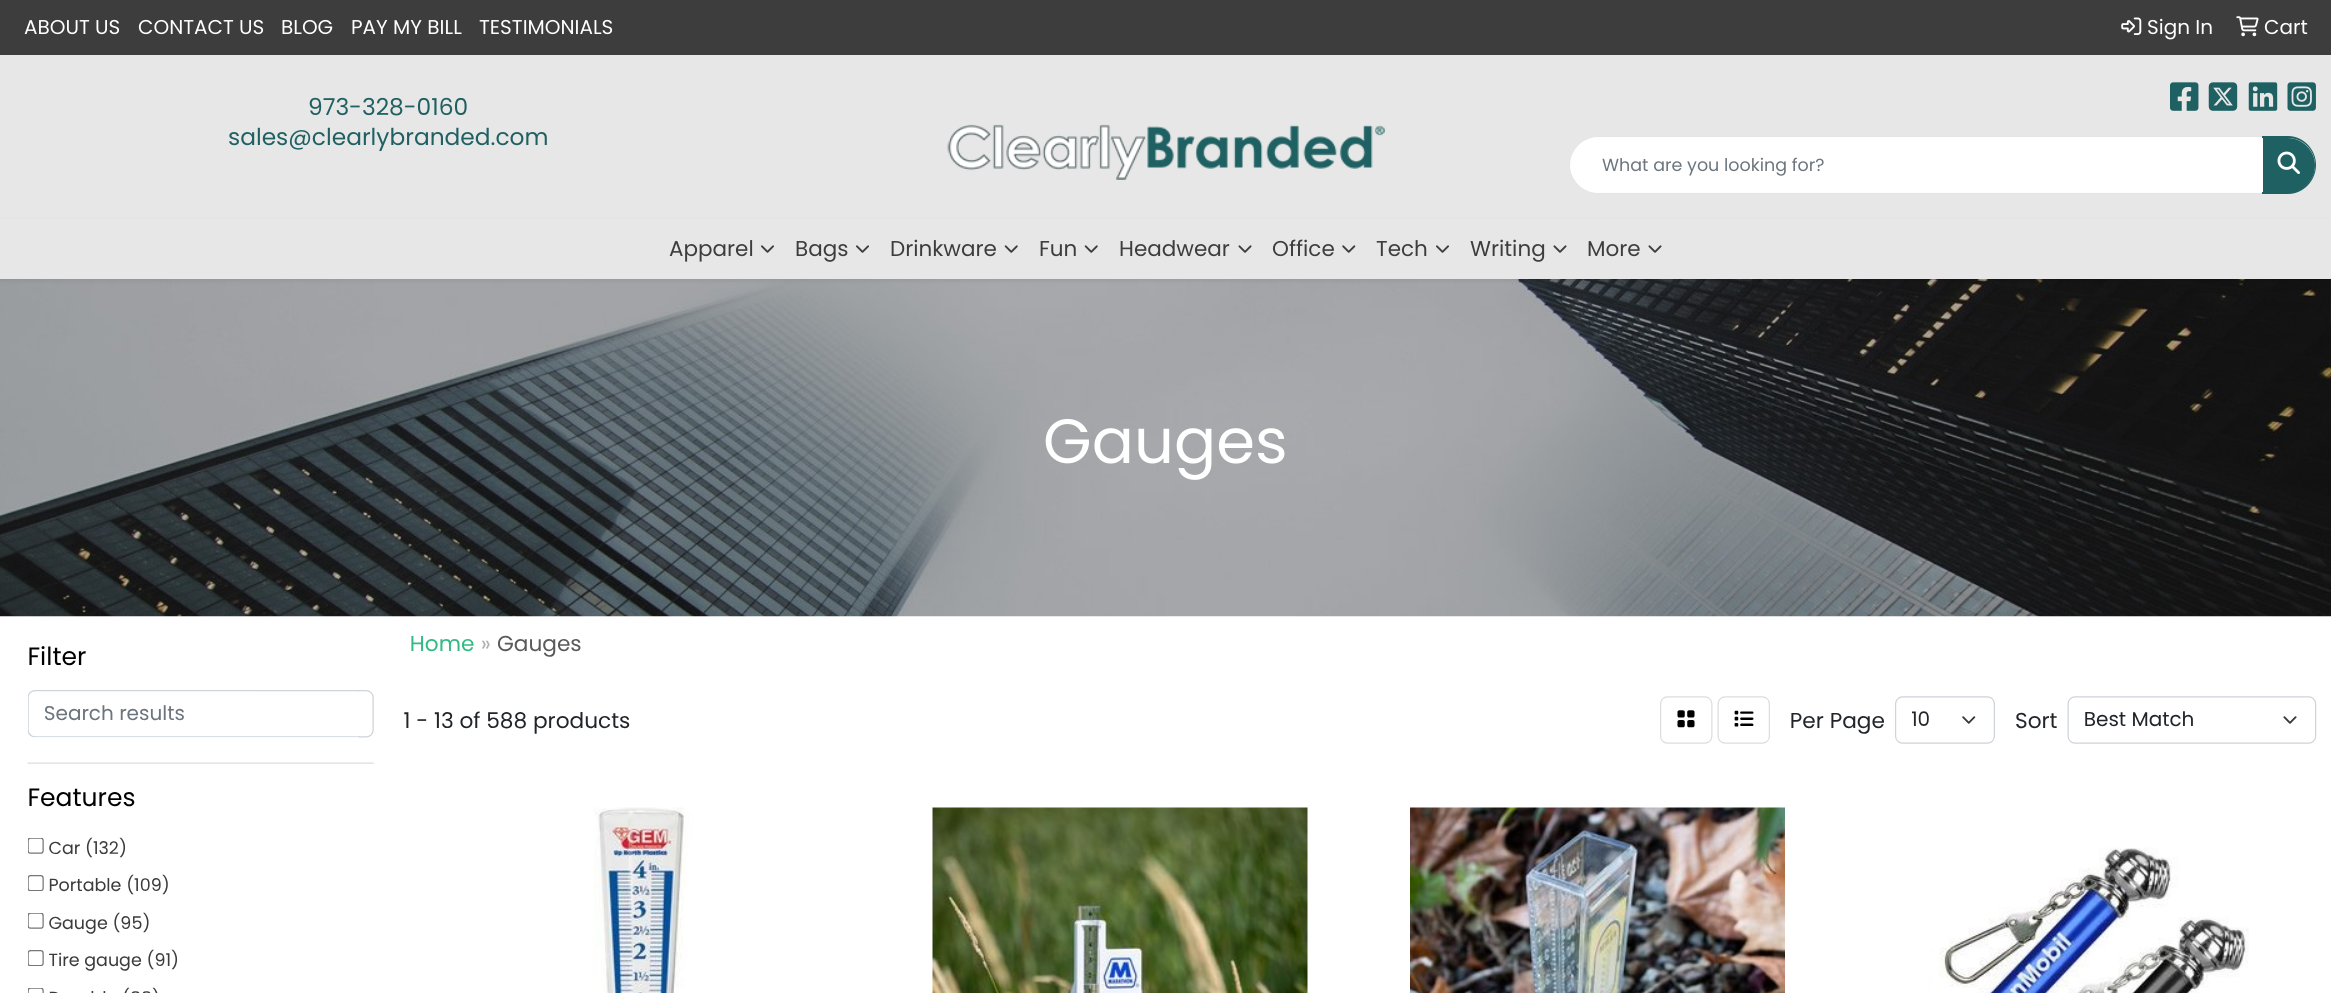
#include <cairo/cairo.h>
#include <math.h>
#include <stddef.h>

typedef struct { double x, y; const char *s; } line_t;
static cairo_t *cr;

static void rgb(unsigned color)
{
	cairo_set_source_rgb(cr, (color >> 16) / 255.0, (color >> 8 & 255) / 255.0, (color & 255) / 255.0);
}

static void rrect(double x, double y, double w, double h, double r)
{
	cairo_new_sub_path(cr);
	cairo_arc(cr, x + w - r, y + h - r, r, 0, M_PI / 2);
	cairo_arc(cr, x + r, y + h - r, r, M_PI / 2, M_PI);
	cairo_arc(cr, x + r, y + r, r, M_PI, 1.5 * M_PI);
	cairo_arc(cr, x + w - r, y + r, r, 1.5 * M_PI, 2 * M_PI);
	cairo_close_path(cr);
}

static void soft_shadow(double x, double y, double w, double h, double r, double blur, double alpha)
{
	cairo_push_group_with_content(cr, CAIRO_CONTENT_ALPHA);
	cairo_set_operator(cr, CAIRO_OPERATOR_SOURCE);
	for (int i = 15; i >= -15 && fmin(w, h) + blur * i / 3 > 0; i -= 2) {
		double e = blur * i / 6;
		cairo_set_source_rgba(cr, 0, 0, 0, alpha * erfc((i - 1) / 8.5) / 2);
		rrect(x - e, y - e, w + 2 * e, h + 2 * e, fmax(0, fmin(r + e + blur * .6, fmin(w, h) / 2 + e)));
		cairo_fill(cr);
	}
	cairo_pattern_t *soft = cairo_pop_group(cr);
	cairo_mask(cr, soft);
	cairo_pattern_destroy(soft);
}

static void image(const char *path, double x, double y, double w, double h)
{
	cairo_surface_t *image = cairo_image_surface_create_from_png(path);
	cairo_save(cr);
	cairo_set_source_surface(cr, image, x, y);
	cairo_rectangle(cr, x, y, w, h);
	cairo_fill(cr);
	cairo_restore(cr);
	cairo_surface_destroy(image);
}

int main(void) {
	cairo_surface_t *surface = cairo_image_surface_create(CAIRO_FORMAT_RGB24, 2331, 993);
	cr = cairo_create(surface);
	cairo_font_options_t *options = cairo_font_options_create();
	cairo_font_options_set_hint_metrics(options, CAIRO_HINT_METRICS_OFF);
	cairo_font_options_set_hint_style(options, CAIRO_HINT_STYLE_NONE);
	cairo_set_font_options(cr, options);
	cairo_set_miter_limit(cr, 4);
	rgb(0xffffff);
	cairo_paint(cr);
	rgb(0xe7e7e7);
	cairo_rectangle(cr, 0, 55, 2331, 164);
	cairo_fill(cr);
	rgb(0x3d3d3d);
	cairo_rectangle(cr, 0, 0, 2331, 55);
	cairo_fill(cr);
	image("img/1.png", 2121, 17, 21, 18);
	image("img/2.png", 2236, 16, 23, 21);
	image("img/3.png", 947, 124, 438, 56);
	image("img/4.png", 2170, 82, 29, 29);
	image("img/5.png", 2208, 82, 30, 29);
	image("img/6.png", 2248, 82, 30, 29);
	image("img/7.png", 2287, 82, 29, 29);
	rgb(0xffffff);
	cairo_new_path(cr);
	cairo_move_to(cr, 1598, 136.5);
	cairo_line_to(cr, 2263.5, 136.5);
	cairo_line_to(cr, 2263.5, 193.5);
	cairo_line_to(cr, 1598, 193.5);
	cairo_curve_to(cr, 1582.5, 193.5, 1569.5, 180.5, 1569.5, 165);
	cairo_curve_to(cr, 1569.5, 149.5, 1582.5, 136.5, 1598, 136.5);
	cairo_close_path(cr);
	cairo_fill_preserve(cr);
	rgb(0xe4e4e4);
	cairo_set_line_width(cr, 1);
	cairo_stroke(cr);
	rgb(0x1f6062);
	cairo_new_path(cr);
	cairo_move_to(cr, 2263, 138);
	cairo_line_to(cr, 2287.5, 138);
	cairo_curve_to(cr, 2302.5, 138, 2315, 150.5, 2315, 165.5);
	cairo_curve_to(cr, 2315, 180.5, 2302.5, 193, 2287.5, 193);
	cairo_line_to(cr, 2263, 193);
	cairo_close_path(cr);
	cairo_fill(cr);
	cairo_set_fill_rule(cr, CAIRO_FILL_RULE_EVEN_ODD);
	cairo_new_path(cr);
	cairo_move_to(cr, 2262, 136);
	cairo_line_to(cr, 2288, 136);
	cairo_curve_to(cr, 2303, 136, 2316, 149, 2316, 165);
	cairo_curve_to(cr, 2316, 181, 2303, 194, 2288, 194);
	cairo_line_to(cr, 2262, 194);
	cairo_close_path(cr);
	cairo_move_to(cr, 2262, 138);
	cairo_line_to(cr, 2288, 138);
	cairo_curve_to(cr, 2303, 138, 2315, 150, 2315, 165);
	cairo_curve_to(cr, 2315, 180, 2303, 192, 2288, 192);
	cairo_line_to(cr, 2262, 192);
	cairo_close_path(cr);
	cairo_fill(cr);
	image("img/8.png", 2277, 151, 23, 23);
	image("img/13.png", 0, 279, 2331, 338);
	rgb(0x000000);
	soft_shadow(0, 221, 2331, 60, 0, 2.5, 0.07);
	rgb(0xe7e7e7);
	cairo_rectangle(cr, 0, 219, 2331, 60);
	cairo_fill(cr);
	image("img/9.png", 761, 245, 13, 8);
	image("img/9.png", 856, 245, 13, 8);
	image("img/10.png", 1004, 245, 14, 8);
	image("img/10.png", 1084, 245, 14, 8);
	image("img/11.png", 1238, 245, 14, 8);
	image("img/12.png", 1342, 245, 14, 8);
	image("img/9.png", 1436, 245, 13, 8);
	image("img/11.png", 1553, 245, 14, 8);
	image("img/11.png", 1648, 245, 14, 8);
	image("img/14.png", 27, 635, 2290, 358);
	cairo_select_font_face(cr, "Poppins", CAIRO_FONT_SLANT_NORMAL, CAIRO_FONT_WEIGHT_NORMAL);
	cairo_set_font_size(cr, 20);
	rgb(0xffffff);
	{
		static const line_t items[] = {
			{24, 34, "ABOUT US"},
			{138, 34, "CONTACT US"},
			{281, 34, "BLOG"},
			{351, 34, "PAY MY BILL"},
			{479, 34, "TESTIMONIALS"},
			{2147, 34, "Sign In"},
			{2264, 34, "Cart"},
		};
		for (size_t i = 0; i < sizeof items / sizeof *items; i++) {
			cairo_move_to(cr, items[i].x, items[i].y);
			cairo_show_text(cr, items[i].s);
		}
	}
	cairo_set_font_size(cr, 23.3);
	rgb(0x1f6062);
	cairo_move_to(cr, 308, 115);
	cairo_show_text(cr, "973-328-0160");
	cairo_move_to(cr, 228, 145);
	cairo_show_text(cr, "sales@clearlybranded.com");
	cairo_set_font_size(cr, 17.5);
	rgb(0x6c757d);
	cairo_move_to(cr, 1602, 171);
	cairo_show_text(cr, "What are you looking for?");
	cairo_set_font_size(cr, 21.5);
	rgb(0x3d3d3d);
	{
		static const line_t items[] = {
			{669, 256, "Apparel"},
			{795, 256, "Bags"},
			{890, 256, "Drinkware"},
			{1039, 256, "Fun"},
			{1119, 256, "Headwear"},
			{1272, 256, "Office"},
			{1376, 256, "Tech"},
			{1470, 256, "Writing"},
			{1587, 256, "More"},
		};
		for (size_t i = 0; i < sizeof items / sizeof *items; i++) {
			cairo_move_to(cr, items[i].x, items[i].y);
			cairo_show_text(cr, items[i].s);
		}
	}
	cairo_set_font_size(cr, 62.5);
	rgb(0xffffff);
	cairo_move_to(cr, 1043, 463);
	cairo_show_text(cr, "Gauges");
	cairo_surface_write_to_png(surface, "page.png");
	cairo_font_options_destroy(options);
	cairo_destroy(cr);
	cairo_surface_destroy(surface);
	return 0;
}
